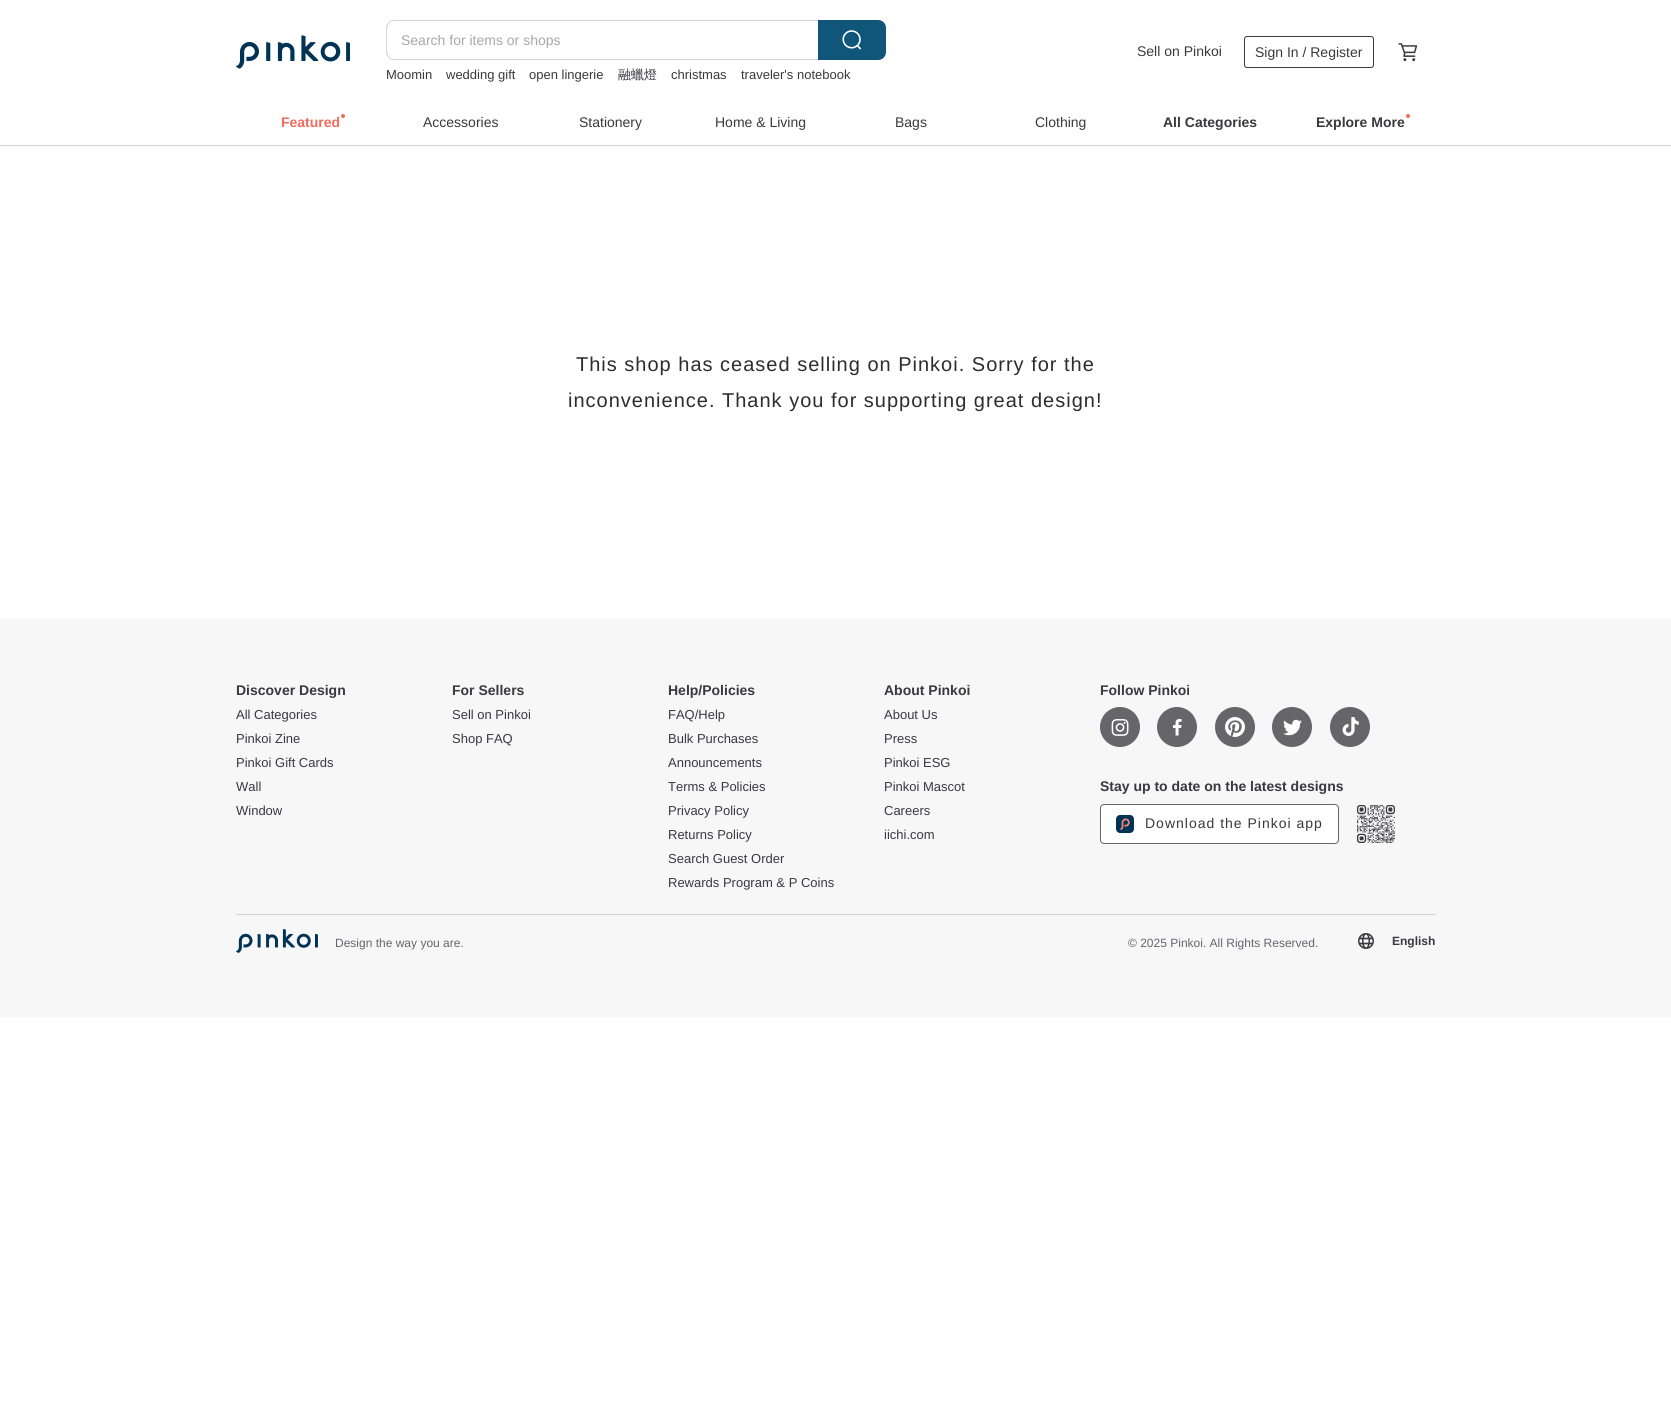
#include <cairo/cairo.h>
#include <math.h>
#include <stddef.h>

typedef struct { double x, y; const char *s; } line_t;
static cairo_t *cr;

static void rgb(unsigned color)
{
	cairo_set_source_rgb(cr, (color >> 16) / 255.0, (color >> 8 & 255) / 255.0, (color & 255) / 255.0);
}

static void tracked(double x, double y, const char *s, double letter, double word)
{
	cairo_move_to(cr, x, y);
	while (*s) {
		char ch[5] = {0};
		int n = 0;
		do ch[n++] = *s++; while ((*s & 0xC0) == 0x80);
		cairo_show_text(cr, ch);
		cairo_rel_move_to(cr, letter + word * (*ch == ' '), 0);
	}
}

static void rrect(double x, double y, double w, double h, double r)
{
	cairo_new_sub_path(cr);
	cairo_arc(cr, x + w - r, y + h - r, r, 0, M_PI / 2);
	cairo_arc(cr, x + r, y + h - r, r, M_PI / 2, M_PI);
	cairo_arc(cr, x + r, y + r, r, M_PI, 1.5 * M_PI);
	cairo_arc(cr, x + w - r, y + r, r, 1.5 * M_PI, 2 * M_PI);
	cairo_close_path(cr);
}

static void image(const char *path, double x, double y, double w, double h)
{
	cairo_surface_t *image = cairo_image_surface_create_from_png(path);
	cairo_save(cr);
	cairo_set_source_surface(cr, image, x, y);
	cairo_rectangle(cr, x, y, w, h);
	cairo_fill(cr);
	cairo_restore(cr);
	cairo_surface_destroy(image);
}

int main(void) {
	cairo_surface_t *surface = cairo_image_surface_create(CAIRO_FORMAT_RGB24, 1671, 1427);
	cr = cairo_create(surface);
	cairo_font_options_t *options = cairo_font_options_create();
	cairo_font_options_set_hint_metrics(options, CAIRO_HINT_METRICS_OFF);
	cairo_font_options_set_hint_style(options, CAIRO_HINT_STYLE_NONE);
	cairo_set_font_options(cr, options);
	cairo_set_miter_limit(cr, 4);
	rgb(0xffffff);
	cairo_paint(cr);
	image("img/1.png", 236, 35, 114, 34);
	rgb(0xd3d3d5);
	cairo_set_fill_rule(cr, CAIRO_FILL_RULE_EVEN_ODD);
	cairo_new_path(cr);
	cairo_move_to(cr, 394, 20);
	cairo_line_to(cr, 818, 20);
	cairo_line_to(cr, 818, 60);
	cairo_line_to(cr, 394, 60);
	cairo_curve_to(cr, 390, 60, 386, 56, 386, 52);
	cairo_line_to(cr, 386, 28);
	cairo_curve_to(cr, 386, 24, 390, 20, 394, 20);
	cairo_close_path(cr);
	cairo_move_to(cr, 394, 21);
	cairo_line_to(cr, 818, 21);
	cairo_line_to(cr, 818, 59);
	cairo_line_to(cr, 394, 59);
	cairo_curve_to(cr, 385, 59, 387, 46, 387, 40);
	cairo_curve_to(cr, 387, 34, 385, 21, 394, 21);
	cairo_close_path(cr);
	cairo_fill(cr);
	rgb(0x10567b);
	cairo_new_path(cr);
	cairo_move_to(cr, 818, 20);
	cairo_line_to(cr, 878, 20);
	cairo_curve_to(cr, 882.5, 20, 886, 23.5, 886, 28);
	cairo_line_to(cr, 886, 52);
	cairo_curve_to(cr, 886, 56.5, 882.5, 60, 878, 60);
	cairo_line_to(cr, 818, 60);
	cairo_close_path(cr);
	cairo_fill(cr);
	image("img/2.png", 842, 30, 20, 20);
	rrect(1244.5, 36.5, 129, 31, 2.5);
	rgb(0x39393e);
	cairo_set_line_width(cr, 1);
	cairo_stroke(cr);
	image("img/3.png", 1398, 43, 20, 19);
	rgb(0xd3d3d5);
	cairo_rectangle(cr, 0, 145, 1671, 1);
	cairo_fill(cr);
	rgb(0xf16c5d);
	cairo_arc(cr, 343, 116, 2, 0, 2 * M_PI);
	cairo_fill(cr);
	cairo_arc(cr, 1408, 116, 2, 0, 2 * M_PI);
	cairo_fill(cr);
	rgb(0xf7f7f8);
	cairo_rectangle(cr, 0, 618, 1671, 399);
	cairo_fill(cr);
	rgb(0xd3d3d5);
	cairo_rectangle(cr, 236, 914, 1200, 1);
	cairo_fill(cr);
	image("img/4.png", 1100, 707, 40, 40);
	image("img/5.png", 1157, 707, 40, 40);
	image("img/6.png", 1215, 707, 40, 40);
	image("img/7.png", 1272, 707, 40, 40);
	image("img/8.png", 1330, 707, 40, 40);
	rgb(0xffffff);
	rrect(1100.5, 804.5, 238, 39, 3.5);
	cairo_fill_preserve(cr);
	rgb(0x66666a);
	cairo_stroke(cr);
	image("img/9.png", 1116, 815, 18, 18);
	image("img/10.png", 1357, 805, 38, 38);
	image("img/11.png", 236, 929, 82, 24);
	image("img/12.png", 1358, 933, 16, 16);
	cairo_select_font_face(cr, "Liberation Sans", CAIRO_FONT_SLANT_NORMAL, CAIRO_FONT_WEIGHT_NORMAL);
	cairo_set_font_size(cr, 14);
	rgb(0xa8a8ab);
	cairo_move_to(cr, 401, 45);
	cairo_show_text(cr, "Search for items or shops");
	cairo_set_font_size(cr, 13);
	rgb(0x39393e);
	{
		static const line_t items[] = {
			{386, 79, "Moomin"},
			{446, 79, "wedding gift"},
			{529, 79, "open lingerie"},
		};
		for (size_t i = 0; i < sizeof items / sizeof *items; i++) {
			cairo_move_to(cr, items[i].x, items[i].y);
			cairo_show_text(cr, items[i].s);
		}
	}
	cairo_select_font_face(cr, "WenQuanYi Zen Hei Medium", CAIRO_FONT_SLANT_NORMAL, CAIRO_FONT_WEIGHT_NORMAL);
	cairo_move_to(cr, 618, 79);
	cairo_show_text(cr, "融蠟燈");
	cairo_select_font_face(cr, "Liberation Sans", CAIRO_FONT_SLANT_NORMAL, CAIRO_FONT_WEIGHT_NORMAL);
	cairo_move_to(cr, 671, 79);
	cairo_show_text(cr, "christmas");
	cairo_move_to(cr, 741, 79);
	cairo_show_text(cr, "traveler's notebook");
	cairo_set_font_size(cr, 14);
	cairo_move_to(cr, 1137, 56);
	cairo_show_text(cr, "Sell on Pinkoi");
	cairo_move_to(cr, 1255, 57);
	cairo_show_text(cr, "Sign In / Register");
	cairo_select_font_face(cr, "Liberation Sans", CAIRO_FONT_SLANT_NORMAL, CAIRO_FONT_WEIGHT_BOLD);
	rgb(0xf16c5d);
	cairo_move_to(cr, 281, 127);
	cairo_show_text(cr, "Featured");
	cairo_select_font_face(cr, "Liberation Sans", CAIRO_FONT_SLANT_NORMAL, CAIRO_FONT_WEIGHT_NORMAL);
	rgb(0x39393e);
	{
		static const line_t items[] = {
			{423, 127, "Accessories"},
			{579, 127, "Stationery"},
			{715, 127, "Home & Living"},
			{895, 127, "Bags"},
			{1035, 127, "Clothing"},
		};
		for (size_t i = 0; i < sizeof items / sizeof *items; i++) {
			cairo_move_to(cr, items[i].x, items[i].y);
			cairo_show_text(cr, items[i].s);
		}
	}
	cairo_select_font_face(cr, "Liberation Sans", CAIRO_FONT_SLANT_NORMAL, CAIRO_FONT_WEIGHT_BOLD);
	cairo_move_to(cr, 1163, 127);
	cairo_show_text(cr, "All Categories");
	cairo_move_to(cr, 1316, 127);
	cairo_show_text(cr, "Explore More");
	cairo_select_font_face(cr, "Liberation Sans", CAIRO_FONT_SLANT_NORMAL, CAIRO_FONT_WEIGHT_NORMAL);
	cairo_set_font_size(cr, 20);
	rgb(0x2c2c32);
	tracked(576, 371, "This shop has ceased selling on Pinkoi. Sorry for the", 1, 0);
	tracked(568, 407, "inconvenience. Thank you for supporting great design!", 1, 0);
	cairo_select_font_face(cr, "Liberation Sans", CAIRO_FONT_SLANT_NORMAL, CAIRO_FONT_WEIGHT_BOLD);
	cairo_set_font_size(cr, 14);
	rgb(0x39393e);
	cairo_move_to(cr, 236, 695);
	cairo_show_text(cr, "Discover Design");
	cairo_select_font_face(cr, "Liberation Sans", CAIRO_FONT_SLANT_NORMAL, CAIRO_FONT_WEIGHT_NORMAL);
	cairo_set_font_size(cr, 13);
	{
		static const line_t items[] = {
			{236, 719, "All Categories"},
			{236, 743, "Pinkoi Zine"},
			{236, 767, "Pinkoi Gift Cards"},
			{236, 791, "Wall"},
			{236, 815, "Window"},
		};
		for (size_t i = 0; i < sizeof items / sizeof *items; i++) {
			cairo_move_to(cr, items[i].x, items[i].y);
			cairo_show_text(cr, items[i].s);
		}
	}
	cairo_select_font_face(cr, "Liberation Sans", CAIRO_FONT_SLANT_NORMAL, CAIRO_FONT_WEIGHT_BOLD);
	cairo_set_font_size(cr, 14);
	cairo_move_to(cr, 452, 695);
	cairo_show_text(cr, "For Sellers");
	cairo_select_font_face(cr, "Liberation Sans", CAIRO_FONT_SLANT_NORMAL, CAIRO_FONT_WEIGHT_NORMAL);
	cairo_set_font_size(cr, 13);
	cairo_move_to(cr, 452, 719);
	cairo_show_text(cr, "Sell on Pinkoi");
	cairo_move_to(cr, 452, 743);
	cairo_show_text(cr, "Shop FAQ");
	cairo_select_font_face(cr, "Liberation Sans", CAIRO_FONT_SLANT_NORMAL, CAIRO_FONT_WEIGHT_BOLD);
	cairo_set_font_size(cr, 14);
	cairo_move_to(cr, 668, 695);
	cairo_show_text(cr, "Help/Policies");
	cairo_select_font_face(cr, "Liberation Sans", CAIRO_FONT_SLANT_NORMAL, CAIRO_FONT_WEIGHT_NORMAL);
	cairo_set_font_size(cr, 13);
	{
		static const line_t items[] = {
			{668, 719, "FAQ/Help"},
			{668, 743, "Bulk Purchases"},
			{668, 767, "Announcements"},
			{668, 791, "Terms & Policies"},
			{668, 815, "Privacy Policy"},
			{668, 839, "Returns Policy"},
			{668, 863, "Search Guest Order"},
			{668, 887, "Rewards Program & P Coins"},
		};
		for (size_t i = 0; i < sizeof items / sizeof *items; i++) {
			cairo_move_to(cr, items[i].x, items[i].y);
			cairo_show_text(cr, items[i].s);
		}
	}
	cairo_select_font_face(cr, "Liberation Sans", CAIRO_FONT_SLANT_NORMAL, CAIRO_FONT_WEIGHT_BOLD);
	cairo_set_font_size(cr, 14);
	cairo_move_to(cr, 884, 695);
	cairo_show_text(cr, "About Pinkoi");
	cairo_select_font_face(cr, "Liberation Sans", CAIRO_FONT_SLANT_NORMAL, CAIRO_FONT_WEIGHT_NORMAL);
	cairo_set_font_size(cr, 13);
	{
		static const line_t items[] = {
			{884, 719, "About Us"},
			{884, 743, "Press"},
			{884, 767, "Pinkoi ESG"},
			{884, 791, "Pinkoi Mascot"},
			{884, 815, "Careers"},
			{884, 839, "iichi.com"},
		};
		for (size_t i = 0; i < sizeof items / sizeof *items; i++) {
			cairo_move_to(cr, items[i].x, items[i].y);
			cairo_show_text(cr, items[i].s);
		}
	}
	cairo_select_font_face(cr, "Liberation Sans", CAIRO_FONT_SLANT_NORMAL, CAIRO_FONT_WEIGHT_BOLD);
	cairo_set_font_size(cr, 14);
	cairo_move_to(cr, 1100, 695);
	cairo_show_text(cr, "Follow Pinkoi");
	cairo_move_to(cr, 1100, 791);
	cairo_show_text(cr, "Stay up to date on the latest designs");
	cairo_select_font_face(cr, "Liberation Sans", CAIRO_FONT_SLANT_NORMAL, CAIRO_FONT_WEIGHT_NORMAL);
	tracked(1145, 828, "Download the Pinkoi app", 1, 0);
	cairo_set_font_size(cr, 12);
	rgb(0x66666a);
	cairo_move_to(cr, 335, 947);
	cairo_show_text(cr, "Design the way you are.");
	cairo_move_to(cr, 1128, 947);
	cairo_show_text(cr, "© 2025 Pinkoi. All Rights Reserved.");
	cairo_select_font_face(cr, "Liberation Sans", CAIRO_FONT_SLANT_NORMAL, CAIRO_FONT_WEIGHT_BOLD);
	rgb(0x39393e);
	cairo_move_to(cr, 1392, 945);
	cairo_show_text(cr, "English");
	cairo_surface_write_to_png(surface, "page.png");
	cairo_font_options_destroy(options);
	cairo_destroy(cr);
	cairo_surface_destroy(surface);
	return 0;
}
